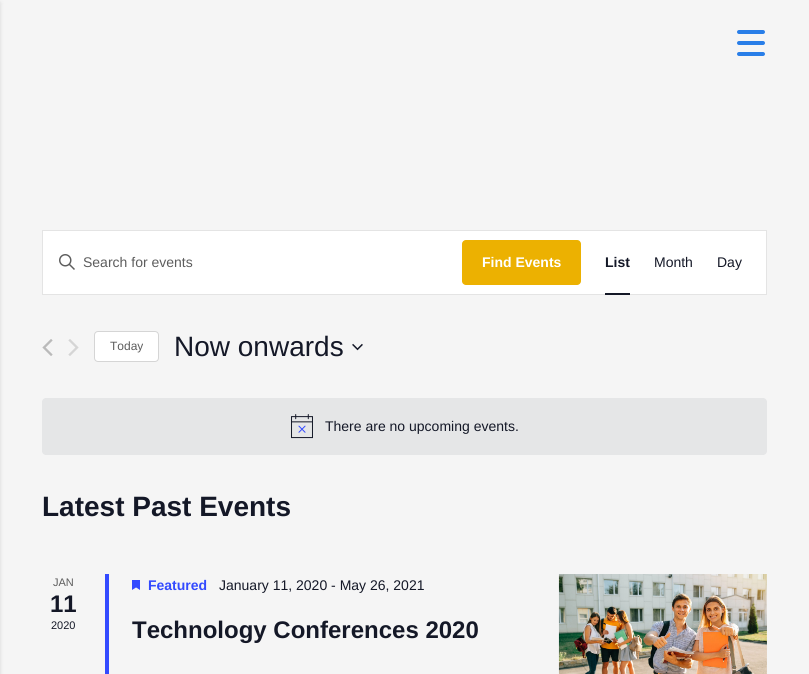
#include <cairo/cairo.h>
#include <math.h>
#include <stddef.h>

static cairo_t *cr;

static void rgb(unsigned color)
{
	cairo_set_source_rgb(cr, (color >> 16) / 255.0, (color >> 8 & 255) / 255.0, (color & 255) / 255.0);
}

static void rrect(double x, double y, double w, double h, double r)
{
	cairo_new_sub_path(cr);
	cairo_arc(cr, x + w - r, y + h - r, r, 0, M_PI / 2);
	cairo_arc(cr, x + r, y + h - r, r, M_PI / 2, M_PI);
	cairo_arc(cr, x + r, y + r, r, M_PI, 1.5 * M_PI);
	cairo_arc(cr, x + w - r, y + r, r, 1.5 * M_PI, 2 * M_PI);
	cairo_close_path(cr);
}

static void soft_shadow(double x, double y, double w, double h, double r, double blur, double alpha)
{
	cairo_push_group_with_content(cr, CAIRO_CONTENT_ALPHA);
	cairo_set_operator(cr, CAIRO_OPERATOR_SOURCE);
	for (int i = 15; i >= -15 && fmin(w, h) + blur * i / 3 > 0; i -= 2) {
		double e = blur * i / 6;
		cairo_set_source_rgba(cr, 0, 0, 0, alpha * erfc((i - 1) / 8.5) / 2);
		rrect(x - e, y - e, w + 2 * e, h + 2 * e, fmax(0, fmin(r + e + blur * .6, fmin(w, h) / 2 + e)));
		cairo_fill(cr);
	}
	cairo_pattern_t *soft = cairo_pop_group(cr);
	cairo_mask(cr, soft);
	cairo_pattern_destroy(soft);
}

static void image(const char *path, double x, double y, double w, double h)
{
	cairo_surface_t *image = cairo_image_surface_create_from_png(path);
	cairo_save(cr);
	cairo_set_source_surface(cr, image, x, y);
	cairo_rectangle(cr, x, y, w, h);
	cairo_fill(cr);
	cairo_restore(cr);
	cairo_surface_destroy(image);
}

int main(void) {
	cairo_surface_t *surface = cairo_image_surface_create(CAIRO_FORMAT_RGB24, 809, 674);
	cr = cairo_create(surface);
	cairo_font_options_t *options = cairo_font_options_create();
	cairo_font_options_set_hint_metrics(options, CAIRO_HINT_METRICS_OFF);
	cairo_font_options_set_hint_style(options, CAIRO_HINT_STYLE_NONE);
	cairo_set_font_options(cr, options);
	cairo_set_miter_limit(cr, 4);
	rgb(0xf5f5f5);
	cairo_paint(cr);
	rgb(0x000000);
	soft_shadow(-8, 3, 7, 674, 0, 2.5, 0.2);
	rgb(0x297ee8);
	rrect(737, 30, 28, 4, 2);
	cairo_fill(cr);
	rrect(737, 41, 28, 4, 2);
	cairo_fill(cr);
	rrect(737, 52, 28, 4, 2);
	cairo_fill(cr);
	rgb(0xffffff);
	cairo_rectangle(cr, 42.5, 230.5, 724, 64);
	cairo_fill_preserve(cr);
	rgb(0xe4e4e4);
	cairo_set_line_width(cr, 1);
	cairo_stroke(cr);
	image("img/1.png", 59, 254, 16, 16);
	rgb(0xecb101);
	rrect(462, 240, 119, 45, 4);
	cairo_fill(cr);
	rgb(0x141827);
	cairo_rectangle(cr, 605, 293, 25, 2);
	cairo_fill(cr);
	image("img/2.png", 42, 339, 11, 17);
	image("img/3.png", 68, 339, 11, 17);
	rgb(0xffffff);
	rrect(94.5, 331.5, 64, 30, 3.5);
	cairo_fill_preserve(cr);
	rgb(0xd5d5d5);
	cairo_stroke(cr);
	image("img/4.png", 352, 343, 11, 8);
	rgb(0xe5e6e7);
	rrect(42, 398, 725, 57, 4);
	cairo_fill(cr);
	image("img/5.png", 291, 414, 22, 25);
	rgb(0x334aff);
	cairo_rectangle(cr, 105, 574, 4, 100);
	cairo_fill(cr);
	image("img/6.png", 132, 580, 8, 10);
	image("img/7.png", 558, 574, 209, 100);
	cairo_select_font_face(cr, "Liberation Sans", CAIRO_FONT_SLANT_NORMAL, CAIRO_FONT_WEIGHT_NORMAL);
	cairo_set_font_size(cr, 14);
	rgb(0x5d5d5d);
	cairo_move_to(cr, 83, 267);
	cairo_show_text(cr, "Search for events");
	cairo_select_font_face(cr, "Liberation Sans", CAIRO_FONT_SLANT_NORMAL, CAIRO_FONT_WEIGHT_BOLD);
	rgb(0xffffff);
	cairo_move_to(cr, 482, 267);
	cairo_show_text(cr, "Find Events");
	rgb(0x141827);
	cairo_move_to(cr, 605, 267);
	cairo_show_text(cr, "List");
	cairo_select_font_face(cr, "Liberation Sans", CAIRO_FONT_SLANT_NORMAL, CAIRO_FONT_WEIGHT_NORMAL);
	cairo_move_to(cr, 654, 267);
	cairo_show_text(cr, "Month");
	cairo_move_to(cr, 717, 267);
	cairo_show_text(cr, "Day");
	cairo_set_font_size(cr, 12);
	rgb(0x5d5d5d);
	cairo_move_to(cr, 110, 350);
	cairo_show_text(cr, "Today");
	cairo_set_font_size(cr, 28);
	rgb(0x141827);
	cairo_move_to(cr, 174, 356);
	cairo_show_text(cr, "Now onwards");
	cairo_set_font_size(cr, 14);
	cairo_move_to(cr, 325, 431);
	cairo_show_text(cr, "There are no upcoming events.");
	cairo_select_font_face(cr, "Liberation Sans", CAIRO_FONT_SLANT_NORMAL, CAIRO_FONT_WEIGHT_BOLD);
	cairo_set_font_size(cr, 28);
	cairo_move_to(cr, 42, 516);
	cairo_show_text(cr, "Latest Past Events");
	cairo_select_font_face(cr, "Liberation Sans", CAIRO_FONT_SLANT_NORMAL, CAIRO_FONT_WEIGHT_NORMAL);
	cairo_set_font_size(cr, 11);
	rgb(0x5d5d5d);
	cairo_move_to(cr, 53, 586);
	cairo_show_text(cr, "JAN");
	cairo_select_font_face(cr, "Liberation Sans", CAIRO_FONT_SLANT_NORMAL, CAIRO_FONT_WEIGHT_BOLD);
	cairo_set_font_size(cr, 24);
	rgb(0x141827);
	cairo_move_to(cr, 50, 612);
	cairo_show_text(cr, "11");
	cairo_select_font_face(cr, "Liberation Sans", CAIRO_FONT_SLANT_NORMAL, CAIRO_FONT_WEIGHT_NORMAL);
	cairo_set_font_size(cr, 11);
	cairo_move_to(cr, 51, 629);
	cairo_show_text(cr, "2020");
	cairo_select_font_face(cr, "Liberation Sans", CAIRO_FONT_SLANT_NORMAL, CAIRO_FONT_WEIGHT_BOLD);
	cairo_set_font_size(cr, 14);
	rgb(0x334aff);
	cairo_move_to(cr, 148, 590);
	cairo_show_text(cr, "Featured");
	cairo_select_font_face(cr, "Liberation Sans", CAIRO_FONT_SLANT_NORMAL, CAIRO_FONT_WEIGHT_NORMAL);
	rgb(0x141827);
	cairo_move_to(cr, 219, 590);
	cairo_show_text(cr, "January 11, 2020 - May 26, 2021");
	cairo_select_font_face(cr, "Liberation Sans", CAIRO_FONT_SLANT_NORMAL, CAIRO_FONT_WEIGHT_BOLD);
	cairo_set_font_size(cr, 24);
	cairo_move_to(cr, 132, 638);
	cairo_show_text(cr, "Technology Conferences 2020");
	cairo_surface_write_to_png(surface, "page.png");
	cairo_font_options_destroy(options);
	cairo_destroy(cr);
	cairo_surface_destroy(surface);
	return 0;
}
